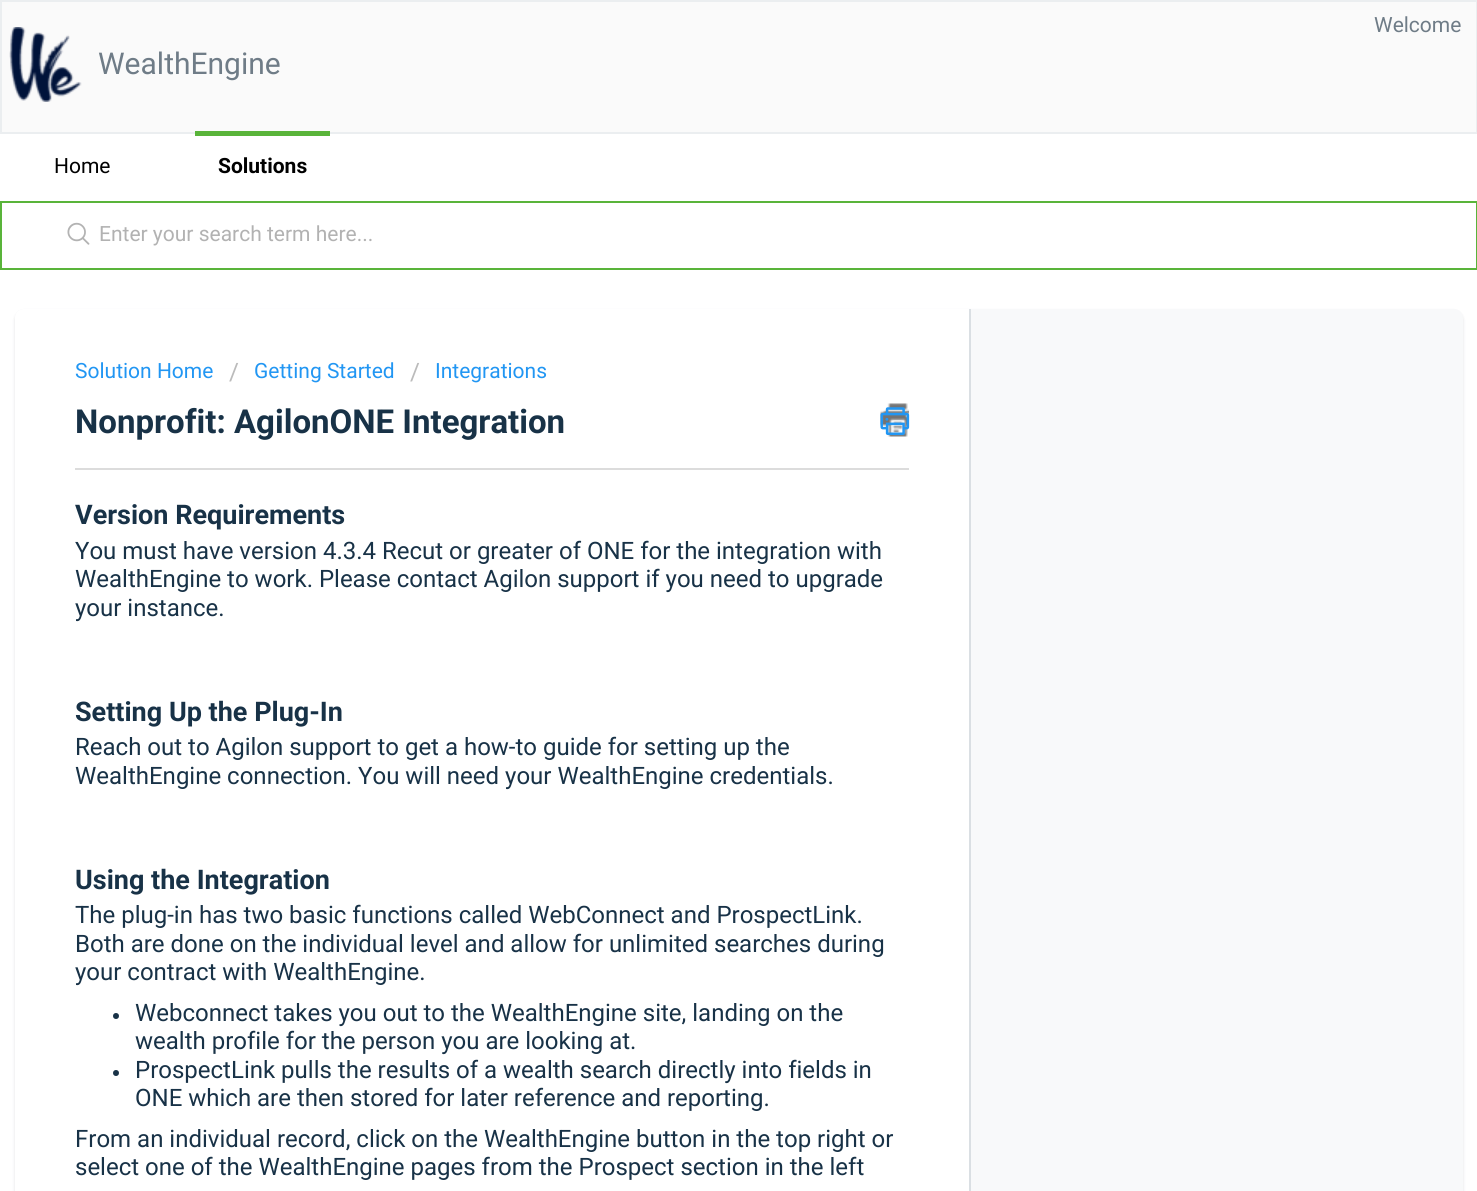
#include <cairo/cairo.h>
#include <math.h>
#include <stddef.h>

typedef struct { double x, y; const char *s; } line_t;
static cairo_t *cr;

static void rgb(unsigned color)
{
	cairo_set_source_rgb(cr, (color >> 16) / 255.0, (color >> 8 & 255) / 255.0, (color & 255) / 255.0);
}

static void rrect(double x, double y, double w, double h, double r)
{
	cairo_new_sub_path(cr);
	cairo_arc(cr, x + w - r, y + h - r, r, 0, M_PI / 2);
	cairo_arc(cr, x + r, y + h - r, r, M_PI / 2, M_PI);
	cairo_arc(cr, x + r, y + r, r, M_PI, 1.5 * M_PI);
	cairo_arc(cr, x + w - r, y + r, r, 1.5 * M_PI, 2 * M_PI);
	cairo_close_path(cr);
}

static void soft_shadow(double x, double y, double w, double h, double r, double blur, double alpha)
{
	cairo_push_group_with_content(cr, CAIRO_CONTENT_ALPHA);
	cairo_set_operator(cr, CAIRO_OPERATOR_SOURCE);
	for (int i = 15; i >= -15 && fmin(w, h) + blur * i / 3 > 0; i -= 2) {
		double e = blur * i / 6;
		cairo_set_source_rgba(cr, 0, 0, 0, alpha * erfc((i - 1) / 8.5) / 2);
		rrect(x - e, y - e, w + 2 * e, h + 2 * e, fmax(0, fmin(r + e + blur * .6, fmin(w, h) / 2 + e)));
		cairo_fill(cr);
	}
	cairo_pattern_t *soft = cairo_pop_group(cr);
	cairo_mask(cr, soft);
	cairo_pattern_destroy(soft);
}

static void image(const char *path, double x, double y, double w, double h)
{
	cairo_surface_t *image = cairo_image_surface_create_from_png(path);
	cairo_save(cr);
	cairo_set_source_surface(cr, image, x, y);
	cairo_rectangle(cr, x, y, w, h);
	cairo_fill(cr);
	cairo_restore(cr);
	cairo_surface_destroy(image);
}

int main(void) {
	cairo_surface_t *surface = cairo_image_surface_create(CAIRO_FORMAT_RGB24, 1477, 1191);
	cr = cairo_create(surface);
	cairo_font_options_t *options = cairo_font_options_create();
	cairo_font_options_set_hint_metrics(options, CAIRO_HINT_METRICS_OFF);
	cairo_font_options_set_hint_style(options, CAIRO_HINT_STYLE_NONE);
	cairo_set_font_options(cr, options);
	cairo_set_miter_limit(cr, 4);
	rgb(0xffffff);
	cairo_paint(cr);
	rgb(0xfafafa);
	cairo_rectangle(cr, 1, 1, 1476, 132);
	cairo_fill_preserve(cr);
	rgb(0xebeef0);
	cairo_stroke(cr);
	image("img/1.png", 9, 27, 73, 75);
	rgb(0x59b43a);
	cairo_rectangle(cr, 195, 131, 135, 5);
	cairo_fill(cr);
	cairo_rectangle(cr, 1, 202, 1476, 67);
	cairo_stroke(cr);
	image("img/2.png", 67, 222, 23, 23);
	rgb(0x3f3f44);
	soft_shadow(15, 311, 1448, 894, 9, 1.5, 0.15);
	rgb(0xf8f9fa);
	rrect(15, 309, 1448, 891, 9);
	cairo_fill(cr);
	rgb(0xffffff);
	cairo_new_path(cr);
	cairo_move_to(cr, 24, 309);
	cairo_line_to(cr, 971, 309);
	cairo_line_to(cr, 971, 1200);
	cairo_line_to(cr, 24, 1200);
	cairo_curve_to(cr, 19, 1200, 15, 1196, 15, 1191);
	cairo_line_to(cr, 15, 318);
	cairo_curve_to(cr, 15, 313, 19, 309, 24, 309);
	cairo_close_path(cr);
	cairo_fill(cr);
	rgb(0xdadfe3);
	cairo_rectangle(cr, 969, 309, 2, 882);
	cairo_fill(cr);
	image("img/3.png", 880, 403, 29, 34);
	image("img/4.png", 880, 407, 30, 28);
	rgb(0xdcdcdc);
	cairo_rectangle(cr, 75, 468, 834, 2);
	cairo_fill(cr);
	rgb(0x183247);
	cairo_arc(cr, 116, 1016, 3, 0, 2 * M_PI);
	cairo_fill(cr);
	cairo_arc(cr, 116, 1073, 3, 0, 2 * M_PI);
	cairo_fill(cr);
	cairo_select_font_face(cr, "Roboto", CAIRO_FONT_SLANT_NORMAL, CAIRO_FONT_WEIGHT_NORMAL);
	cairo_set_font_size(cr, 21);
	rgb(0x6f7c87);
	cairo_move_to(cr, 1374, 32);
	cairo_show_text(cr, "Welcome");
	cairo_set_font_size(cr, 30);
	cairo_move_to(cr, 98, 74);
	cairo_show_text(cr, "WealthEngine");
	cairo_set_font_size(cr, 21);
	rgb(0x000000);
	cairo_move_to(cr, 54, 173);
	cairo_show_text(cr, "Home");
	cairo_select_font_face(cr, "Roboto", CAIRO_FONT_SLANT_NORMAL, CAIRO_FONT_WEIGHT_BOLD);
	cairo_move_to(cr, 218, 173);
	cairo_show_text(cr, "Solutions");
	cairo_select_font_face(cr, "Roboto", CAIRO_FONT_SLANT_NORMAL, CAIRO_FONT_WEIGHT_NORMAL);
	rgb(0xb2b2b2);
	cairo_move_to(cr, 99, 241);
	cairo_show_text(cr, "Enter your search term here...");
	rgb(0x2196f3);
	cairo_move_to(cr, 75, 378);
	cairo_show_text(cr, "Solution Home");
	cairo_set_font_size(cr, 24);
	rgb(0xbbbbbb);
	cairo_move_to(cr, 229, 380);
	cairo_show_text(cr, "/");
	cairo_set_font_size(cr, 21);
	rgb(0x2196f3);
	cairo_move_to(cr, 254, 378);
	cairo_show_text(cr, "Getting Started");
	cairo_set_font_size(cr, 24);
	rgb(0xbbbbbb);
	cairo_move_to(cr, 410, 380);
	cairo_show_text(cr, "/");
	cairo_set_font_size(cr, 21);
	rgb(0x2196f3);
	cairo_move_to(cr, 435, 378);
	cairo_show_text(cr, "Integrations");
	cairo_select_font_face(cr, "Roboto", CAIRO_FONT_SLANT_NORMAL, CAIRO_FONT_WEIGHT_BOLD);
	cairo_set_font_size(cr, 33);
	rgb(0x183247);
	cairo_move_to(cr, 75, 433);
	cairo_show_text(cr, "Nonprofit: AgilonONE Integration");
	cairo_set_font_size(cr, 27);
	cairo_move_to(cr, 75, 524);
	cairo_show_text(cr, "Version Requirements");
	cairo_select_font_face(cr, "Roboto", CAIRO_FONT_SLANT_NORMAL, CAIRO_FONT_WEIGHT_NORMAL);
	cairo_set_font_size(cr, 24);
	{
		static const line_t items[] = {
			{75, 559, "You must have version 4.3.4 Recut or greater of ONE for the integration with"},
			{75, 587, "WealthEngine to work. Please contact Agilon support if you need to upgrade"},
			{75, 616, "your instance."},
		};
		for (size_t i = 0; i < sizeof items / sizeof *items; i++) {
			cairo_move_to(cr, items[i].x, items[i].y);
			cairo_show_text(cr, items[i].s);
		}
	}
	cairo_select_font_face(cr, "Roboto", CAIRO_FONT_SLANT_NORMAL, CAIRO_FONT_WEIGHT_BOLD);
	cairo_set_font_size(cr, 27);
	cairo_move_to(cr, 75, 721);
	cairo_show_text(cr, "Setting Up the Plug-In");
	cairo_select_font_face(cr, "Roboto", CAIRO_FONT_SLANT_NORMAL, CAIRO_FONT_WEIGHT_NORMAL);
	cairo_set_font_size(cr, 24);
	cairo_move_to(cr, 75, 755);
	cairo_show_text(cr, "Reach out to Agilon support to get a how-to guide for setting up the");
	cairo_move_to(cr, 75, 784);
	cairo_show_text(cr, "WealthEngine connection. You will need your WealthEngine credentials.");
	cairo_select_font_face(cr, "Roboto", CAIRO_FONT_SLANT_NORMAL, CAIRO_FONT_WEIGHT_BOLD);
	cairo_set_font_size(cr, 27);
	cairo_move_to(cr, 75, 889);
	cairo_show_text(cr, "Using the Integration");
	cairo_select_font_face(cr, "Roboto", CAIRO_FONT_SLANT_NORMAL, CAIRO_FONT_WEIGHT_NORMAL);
	cairo_set_font_size(cr, 24);
	{
		static const line_t items[] = {
			{75, 923, "The plug-in has two basic functions called WebConnect and ProspectLink."},
			{75, 952, "Both are done on the individual level and allow for unlimited searches during"},
			{75, 980, "your contract with WealthEngine."},
			{135, 1021, "Webconnect takes you out to the WealthEngine site, landing on the"},
			{135, 1049, "wealth profile for the person you are looking at."},
			{135, 1078, "ProspectLink pulls the results of a wealth search directly into fields in"},
			{135, 1106, "ONE which are then stored for later reference and reporting."},
			{75, 1147, "From an individual record, click on the WealthEngine button in the top right or"},
			{75, 1175, "select one of the WealthEngine pages from the Prospect section in the left"},
		};
		for (size_t i = 0; i < sizeof items / sizeof *items; i++) {
			cairo_move_to(cr, items[i].x, items[i].y);
			cairo_show_text(cr, items[i].s);
		}
	}
	cairo_surface_write_to_png(surface, "page.png");
	cairo_font_options_destroy(options);
	cairo_destroy(cr);
	cairo_surface_destroy(surface);
	return 0;
}
